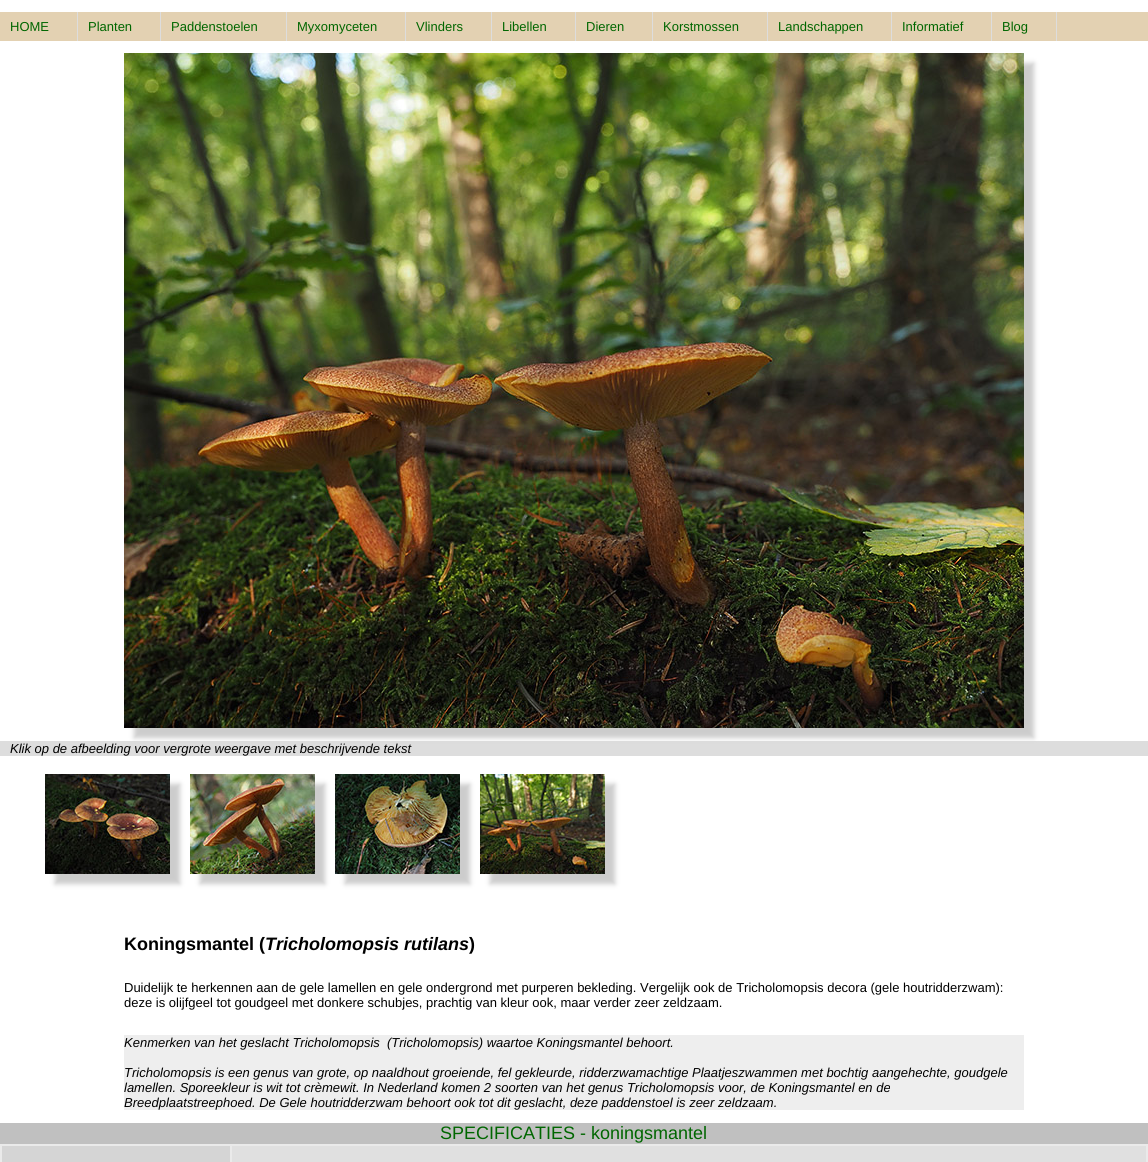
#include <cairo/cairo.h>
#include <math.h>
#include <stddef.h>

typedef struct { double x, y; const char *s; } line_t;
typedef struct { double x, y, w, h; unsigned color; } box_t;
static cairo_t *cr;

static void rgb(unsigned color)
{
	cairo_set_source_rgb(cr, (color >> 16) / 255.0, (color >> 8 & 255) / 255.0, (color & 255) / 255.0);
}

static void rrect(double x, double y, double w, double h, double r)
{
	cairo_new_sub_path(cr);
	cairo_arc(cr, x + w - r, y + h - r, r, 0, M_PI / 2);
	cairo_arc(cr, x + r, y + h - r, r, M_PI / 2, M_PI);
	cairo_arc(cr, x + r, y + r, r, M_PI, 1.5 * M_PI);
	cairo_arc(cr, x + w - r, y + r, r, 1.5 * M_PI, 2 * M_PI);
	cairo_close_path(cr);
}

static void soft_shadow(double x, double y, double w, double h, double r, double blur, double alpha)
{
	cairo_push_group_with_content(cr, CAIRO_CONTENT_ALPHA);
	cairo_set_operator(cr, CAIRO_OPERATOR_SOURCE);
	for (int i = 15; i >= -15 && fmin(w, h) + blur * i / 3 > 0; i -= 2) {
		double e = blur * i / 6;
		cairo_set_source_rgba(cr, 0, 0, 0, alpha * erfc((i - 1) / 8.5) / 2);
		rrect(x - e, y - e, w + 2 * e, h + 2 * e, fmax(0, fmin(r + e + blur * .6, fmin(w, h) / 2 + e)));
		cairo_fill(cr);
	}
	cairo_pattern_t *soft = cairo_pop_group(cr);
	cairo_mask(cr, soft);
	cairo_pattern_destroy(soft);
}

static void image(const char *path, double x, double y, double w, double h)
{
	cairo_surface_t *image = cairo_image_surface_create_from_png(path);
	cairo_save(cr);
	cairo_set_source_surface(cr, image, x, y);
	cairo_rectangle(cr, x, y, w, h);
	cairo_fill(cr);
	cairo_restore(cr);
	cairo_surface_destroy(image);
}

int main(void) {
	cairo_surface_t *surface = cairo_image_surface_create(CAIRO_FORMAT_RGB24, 1148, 1162);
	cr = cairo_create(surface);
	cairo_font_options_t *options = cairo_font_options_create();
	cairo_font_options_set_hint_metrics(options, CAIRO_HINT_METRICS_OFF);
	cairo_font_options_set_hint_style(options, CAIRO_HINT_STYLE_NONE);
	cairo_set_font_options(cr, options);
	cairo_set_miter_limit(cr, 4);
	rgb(0xffffff);
	cairo_paint(cr);
	{
		static const box_t items[] = {
			{0, 12, 1148, 29, 0xe3d1b2},
			{77, 12, 1, 29, 0xdddddd},
			{160, 12, 1, 29, 0xdddddd},
			{286, 12, 1, 29, 0xdddddd},
			{405, 12, 1, 29, 0xdddddd},
			{491, 12, 1, 29, 0xdddddd},
			{575, 12, 1, 29, 0xdddddd},
			{652, 12, 1, 29, 0xdddddd},
			{767, 12, 1, 29, 0xdddddd},
			{891, 12, 1, 29, 0xdddddd},
			{991, 12, 1, 29, 0xdddddd},
			{1056, 12, 1, 29, 0xdddddd},
			{0, 741, 1148, 15, 0xdddddd},
		};
		for (size_t i = 0; i < sizeof items / sizeof *items; i++) {
			rgb(items[i].color);
			cairo_rectangle(cr, items[i].x, items[i].y, items[i].w, items[i].h);
			cairo_fill(cr);
		}
	}
	rgb(0xcccccc);
	soft_shadow(134, 63, 900, 675, 0, 2.5, 1);
	image("img/1.png", 124, 53, 900, 675);
	soft_shadow(55, 784, 125, 100, 0, 2.5, 1);
	image("img/2.png", 45, 774, 125, 100);
	soft_shadow(200, 784, 125, 100, 0, 2.5, 1);
	image("img/3.png", 190, 774, 125, 100);
	soft_shadow(345, 784, 125, 100, 0, 2.5, 1);
	image("img/4.png", 335, 774, 125, 100);
	soft_shadow(490, 784, 125, 100, 0, 2.5, 1);
	image("img/5.png", 480, 774, 125, 100);
	{
		static const box_t items[] = {
			{124, 1035, 900, 75, 0xeeeeee},
			{0, 1144, 1148, 18, 0xeaeaea},
			{0, 1123, 1148, 21, 0xc0c0c0},
			{2, 1146, 228, 16, 0xd5d5d5},
			{232, 1146, 914, 16, 0xe0e0e0},
		};
		for (size_t i = 0; i < sizeof items / sizeof *items; i++) {
			rgb(items[i].color);
			cairo_rectangle(cr, items[i].x, items[i].y, items[i].w, items[i].h);
			cairo_fill(cr);
		}
	}
	cairo_select_font_face(cr, "Liberation Sans", CAIRO_FONT_SLANT_NORMAL, CAIRO_FONT_WEIGHT_NORMAL);
	cairo_set_font_size(cr, 13);
	rgb(0x006600);
	{
		static const line_t items[] = {
			{10, 31, "HOME"},
			{88, 31, "Planten"},
			{171, 31, "Paddenstoelen"},
			{297, 31, "Myxomyceten"},
			{416, 31, "Vlinders"},
			{502, 31, "Libellen"},
			{586, 31, "Dieren"},
			{663, 31, "Korstmossen"},
			{778, 31, "Landschappen"},
			{902, 31, "Informatief"},
			{1002, 31, "Blog"},
		};
		for (size_t i = 0; i < sizeof items / sizeof *items; i++) {
			cairo_move_to(cr, items[i].x, items[i].y);
			cairo_show_text(cr, items[i].s);
		}
	}
	cairo_select_font_face(cr, "Liberation Sans", CAIRO_FONT_SLANT_ITALIC, CAIRO_FONT_WEIGHT_NORMAL);
	rgb(0x000000);
	cairo_move_to(cr, 10, 753);
	cairo_show_text(cr, "Klik op de afbeelding voor vergrote weergave met beschrijvende tekst");
	cairo_select_font_face(cr, "Liberation Sans", CAIRO_FONT_SLANT_NORMAL, CAIRO_FONT_WEIGHT_BOLD);
	cairo_set_font_size(cr, 18);
	cairo_move_to(cr, 124, 950);
	cairo_show_text(cr, "Koningsmantel (");
	cairo_select_font_face(cr, "Liberation Sans", CAIRO_FONT_SLANT_ITALIC, CAIRO_FONT_WEIGHT_BOLD);
	cairo_move_to(cr, 265, 950);
	cairo_show_text(cr, "Tricholomopsis rutilans");
	cairo_select_font_face(cr, "Liberation Sans", CAIRO_FONT_SLANT_NORMAL, CAIRO_FONT_WEIGHT_BOLD);
	cairo_move_to(cr, 469, 950);
	cairo_show_text(cr, ")");
	cairo_select_font_face(cr, "Liberation Sans", CAIRO_FONT_SLANT_NORMAL, CAIRO_FONT_WEIGHT_NORMAL);
	cairo_set_font_size(cr, 13);
	cairo_move_to(cr, 124, 992);
	cairo_show_text(cr, "Duidelijk te herkennen aan de gele lamellen en gele ondergrond met purperen bekleding. Vergelijk ook de Tricholomopsis decora (gele houtridderzwam):");
	cairo_move_to(cr, 124, 1007);
	cairo_show_text(cr, "deze is olijfgeel tot goudgeel met donkere schubjes, prachtig van kleur ook, maar verder zeer zeldzaam.");
	cairo_select_font_face(cr, "Liberation Sans", CAIRO_FONT_SLANT_ITALIC, CAIRO_FONT_WEIGHT_NORMAL);
	{
		static const line_t items[] = {
			{124, 1047, "Kenmerken van het geslacht Tricholomopsis  (Tricholomopsis) waartoe Koningsmantel behoort."},
			{124, 1077, "Tricholomopsis is een genus van grote, op naaldhout groeiende, fel gekleurde, ridderzwamachtige Plaatjeszwammen met bochtig aangehechte, goudgele"},
			{124, 1092, "lamellen. Sporeekleur is wit tot crèmewit. In Nederland komen 2 soorten van het genus Tricholomopsis voor, de Koningsmantel en de"},
			{124, 1107, "Breedplaatstreephoed. De Gele houtridderzwam behoort ook tot dit geslacht, deze paddenstoel is zeer zeldzaam."},
		};
		for (size_t i = 0; i < sizeof items / sizeof *items; i++) {
			cairo_move_to(cr, items[i].x, items[i].y);
			cairo_show_text(cr, items[i].s);
		}
	}
	cairo_select_font_face(cr, "Liberation Sans", CAIRO_FONT_SLANT_NORMAL, CAIRO_FONT_WEIGHT_NORMAL);
	cairo_set_font_size(cr, 18);
	rgb(0x006600);
	cairo_move_to(cr, 440, 1139);
	cairo_show_text(cr, "SPECIFICATIES - koningsmantel");
	cairo_surface_write_to_png(surface, "page.png");
	cairo_font_options_destroy(options);
	cairo_destroy(cr);
	cairo_surface_destroy(surface);
	return 0;
}
